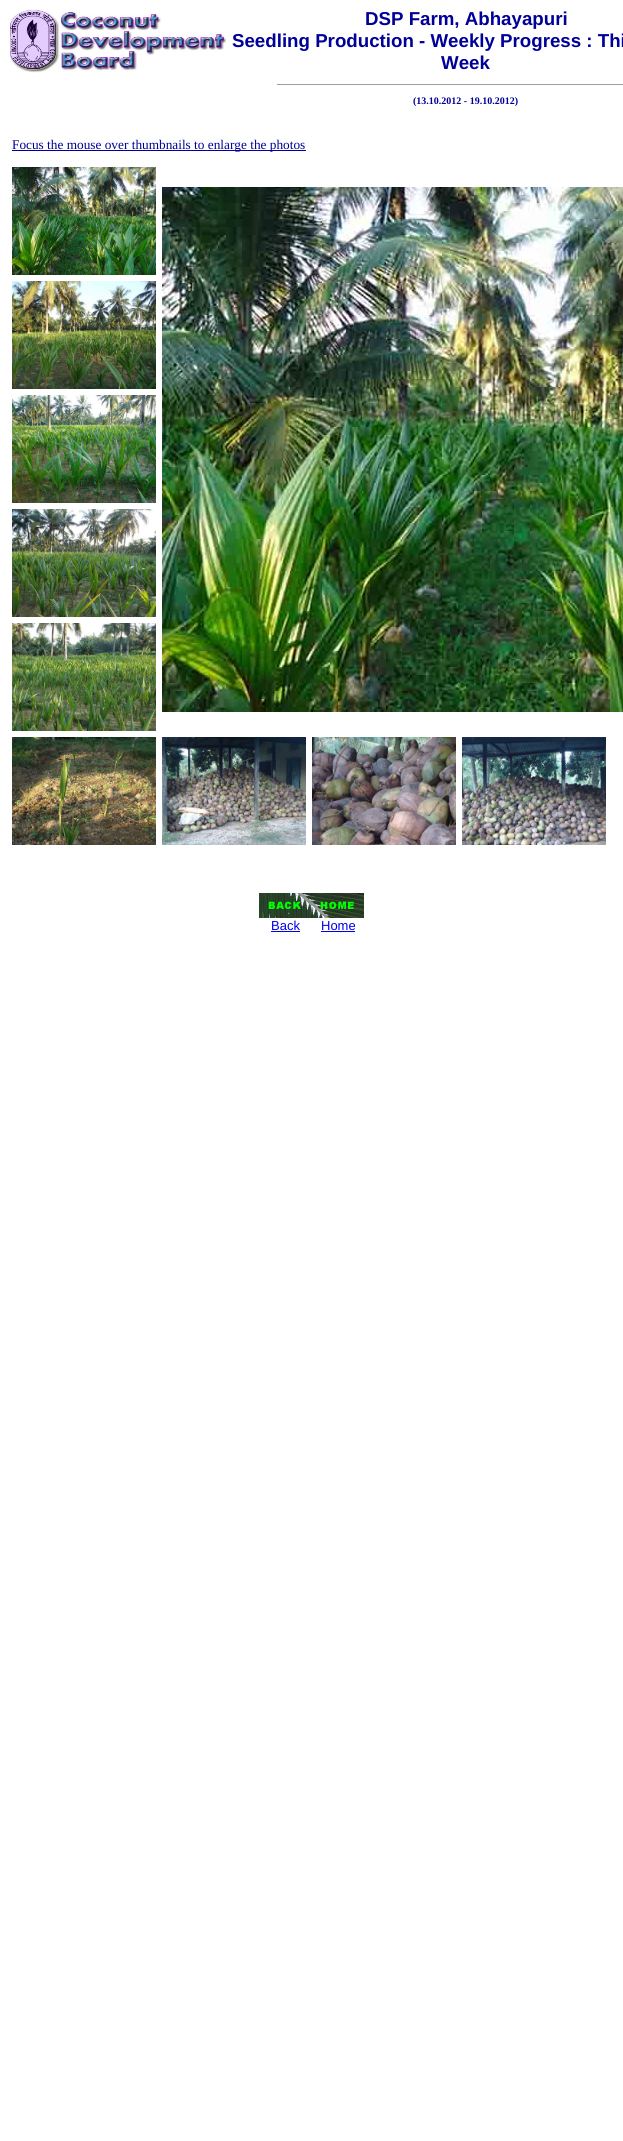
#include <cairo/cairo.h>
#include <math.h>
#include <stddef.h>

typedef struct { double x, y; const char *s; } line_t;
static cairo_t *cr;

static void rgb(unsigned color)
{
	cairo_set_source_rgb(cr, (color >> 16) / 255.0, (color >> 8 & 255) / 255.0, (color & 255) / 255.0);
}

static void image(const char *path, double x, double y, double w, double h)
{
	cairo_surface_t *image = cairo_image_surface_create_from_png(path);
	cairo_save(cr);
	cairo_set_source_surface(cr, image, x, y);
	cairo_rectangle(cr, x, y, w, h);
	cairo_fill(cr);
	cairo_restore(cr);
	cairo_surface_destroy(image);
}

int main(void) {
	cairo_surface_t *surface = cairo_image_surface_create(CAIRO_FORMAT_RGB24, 623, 2141);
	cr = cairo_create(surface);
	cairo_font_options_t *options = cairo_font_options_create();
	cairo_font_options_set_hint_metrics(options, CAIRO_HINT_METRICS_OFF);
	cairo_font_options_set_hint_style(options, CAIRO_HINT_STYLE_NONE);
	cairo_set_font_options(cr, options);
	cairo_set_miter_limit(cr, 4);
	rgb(0xffffff);
	cairo_paint(cr);
	image("img/1.png", 10, 9, 217, 64);
	rgb(0x9f9f9f);
	cairo_rectangle(cr, 277, 84, 346, 1);
	cairo_fill(cr);
	rgb(0x000099);
	cairo_rectangle(cr, 12, 150, 294, 1);
	cairo_fill(cr);
	image("img/2.png", 12, 167, 144, 108);
	image("img/3.png", 162, 187, 461, 525);
	image("img/4.png", 12, 281, 144, 108);
	image("img/5.png", 12, 395, 144, 108);
	image("img/6.png", 12, 509, 144, 108);
	image("img/7.png", 12, 623, 144, 108);
	image("img/8.png", 12, 737, 144, 108);
	image("img/9.png", 162, 737, 144, 108);
	image("img/10.png", 312, 737, 144, 108);
	image("img/11.png", 462, 737, 144, 108);
	image("img/12.png", 259, 893, 53, 25);
	image("img/13.png", 312, 893, 52, 25);
	rgb(0x0000ee);
	cairo_rectangle(cr, 271, 931, 29, 1);
	cairo_fill(cr);
	cairo_rectangle(cr, 321, 931, 34, 1);
	cairo_fill(cr);
	cairo_select_font_face(cr, "Liberation Sans", CAIRO_FONT_SLANT_NORMAL, CAIRO_FONT_WEIGHT_BOLD);
	cairo_set_font_size(cr, 18.7);
	rgb(0x000099);
	{
		static const line_t items[] = {
			{365, 25, "DSP Farm, Abhayapuri"},
			{232, 47, "Seedling Production - Weekly Progress : Thi"},
			{441, 69, "Week"},
		};
		for (size_t i = 0; i < sizeof items / sizeof *items; i++) {
			cairo_move_to(cr, items[i].x, items[i].y);
			cairo_show_text(cr, items[i].s);
		}
	}
	cairo_select_font_face(cr, "Liberation Serif", CAIRO_FONT_SLANT_NORMAL, CAIRO_FONT_WEIGHT_BOLD);
	cairo_set_font_size(cr, 10);
	cairo_move_to(cr, 413, 104);
	cairo_show_text(cr, "(13.10.2012 - 19.10.2012)");
	cairo_select_font_face(cr, "Liberation Serif", CAIRO_FONT_SLANT_NORMAL, CAIRO_FONT_WEIGHT_NORMAL);
	cairo_set_font_size(cr, 13.3);
	cairo_move_to(cr, 12, 149);
	cairo_show_text(cr, "Focus the mouse over thumbnails to enlarge the photos");
	cairo_select_font_face(cr, "Liberation Sans", CAIRO_FONT_SLANT_NORMAL, CAIRO_FONT_WEIGHT_NORMAL);
	cairo_set_font_size(cr, 13);
	rgb(0x0000ee);
	cairo_move_to(cr, 271, 930);
	cairo_show_text(cr, "Back");
	cairo_move_to(cr, 321, 930);
	cairo_show_text(cr, "Home");
	cairo_surface_write_to_png(surface, "page.png");
	cairo_font_options_destroy(options);
	cairo_destroy(cr);
	cairo_surface_destroy(surface);
	return 0;
}
